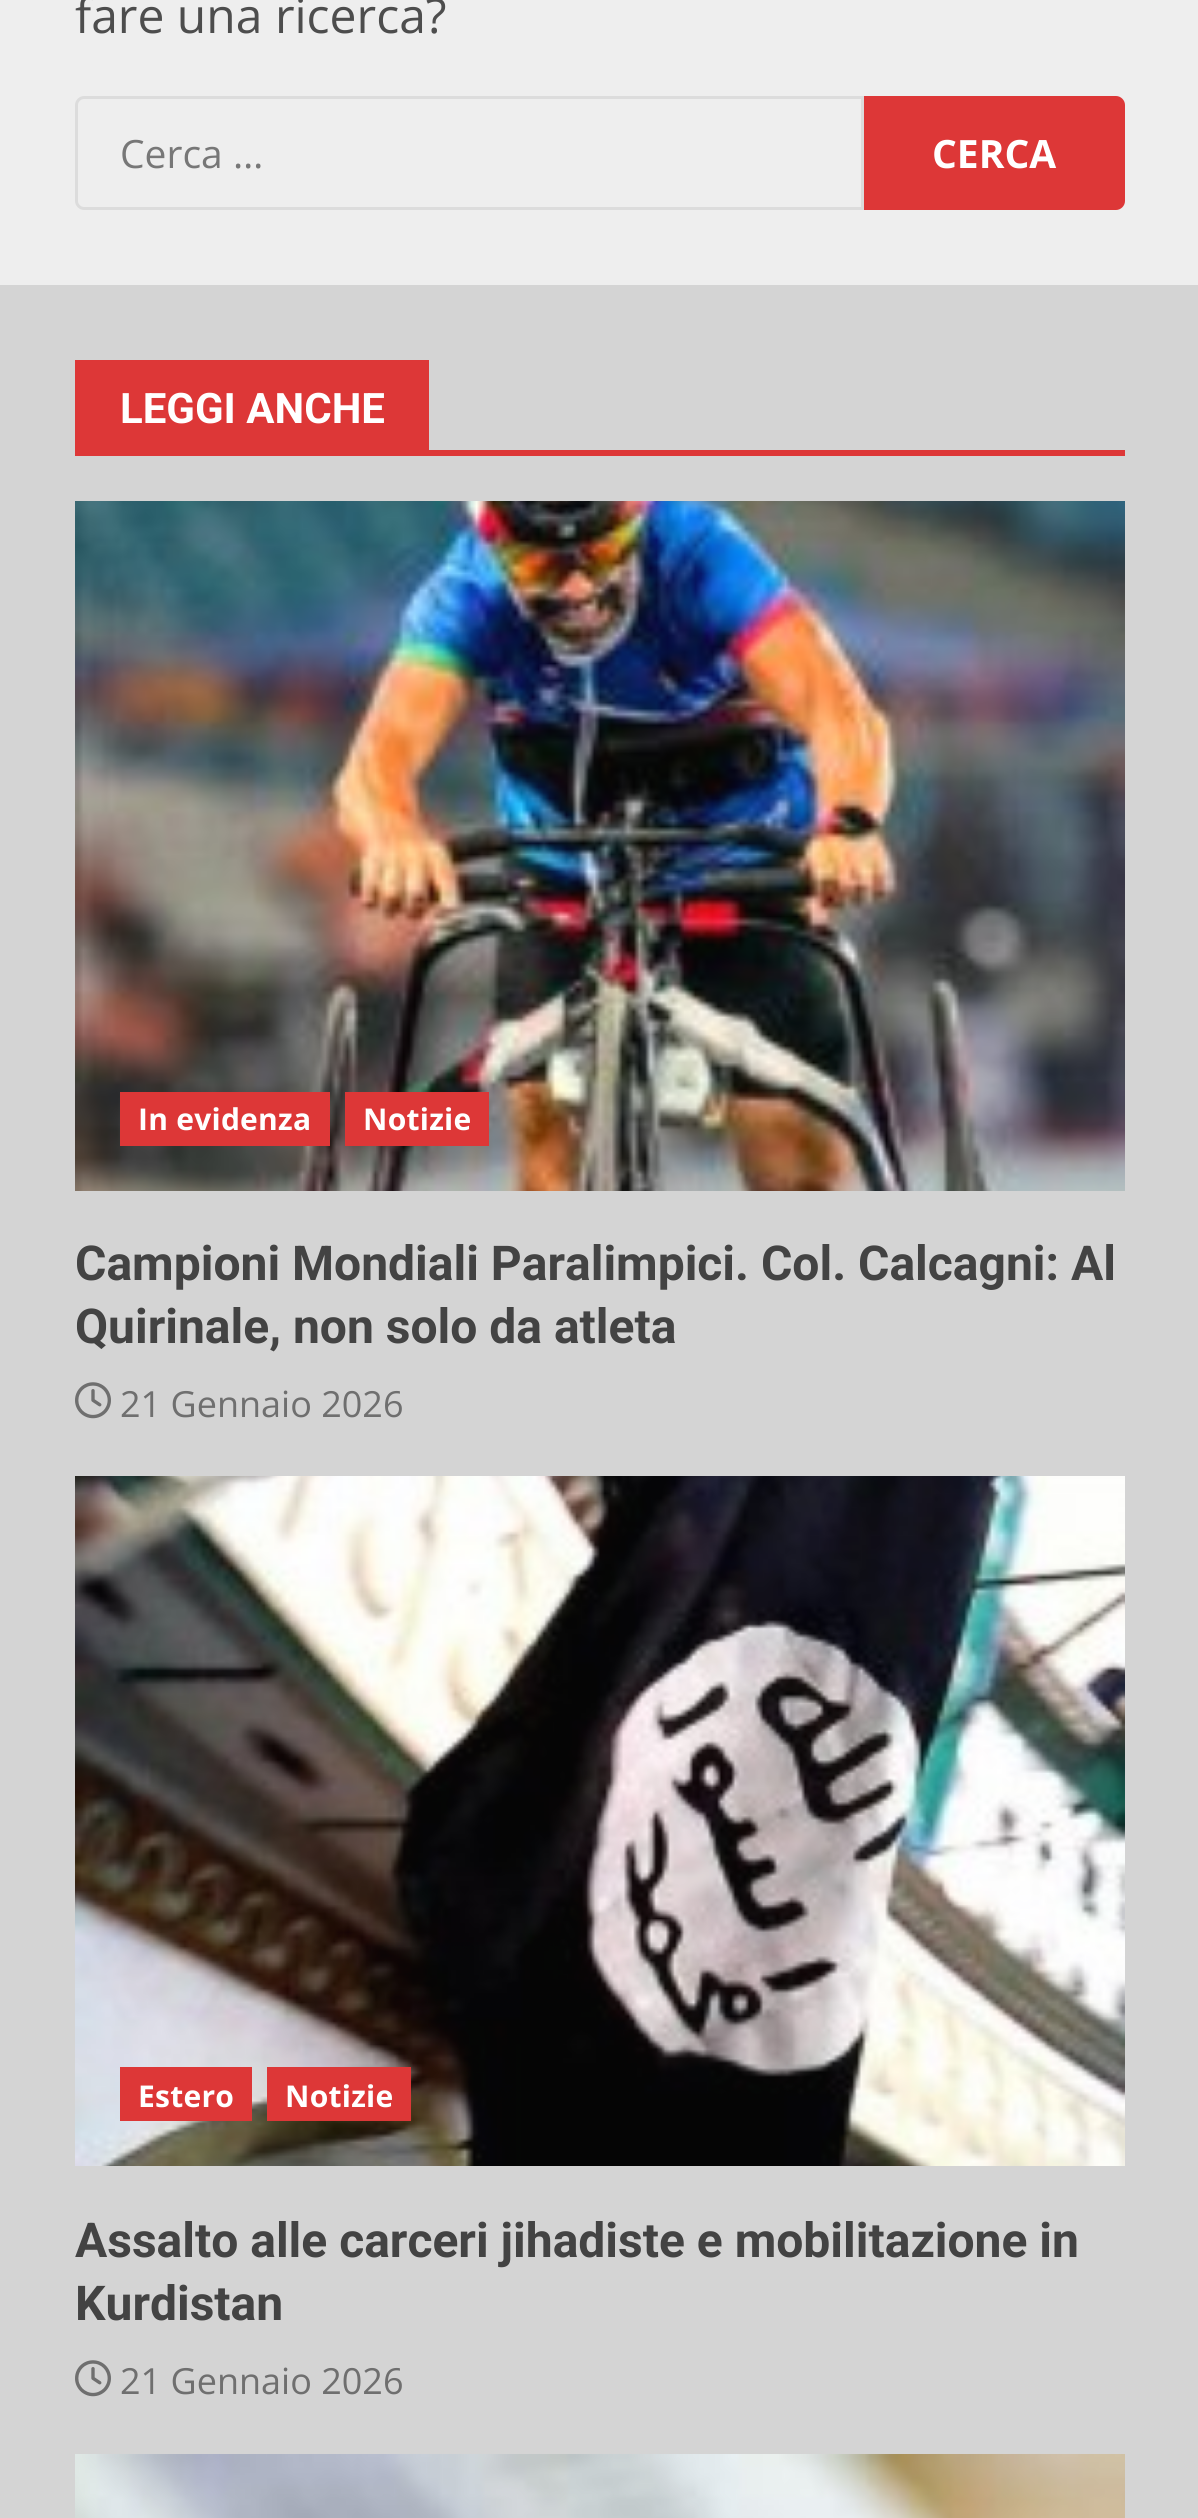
#include <cairo/cairo.h>
#include <math.h>
#include <stddef.h>

typedef struct { double x, y, w, h; unsigned color; } box_t;
static cairo_t *cr;

static void rgb(unsigned color)
{
	cairo_set_source_rgb(cr, (color >> 16) / 255.0, (color >> 8 & 255) / 255.0, (color & 255) / 255.0);
}

static void tracked(double x, double y, const char *s, double letter, double word)
{
	cairo_move_to(cr, x, y);
	while (*s) {
		char ch[5] = {0};
		int n = 0;
		do ch[n++] = *s++; while ((*s & 0xC0) == 0x80);
		cairo_show_text(cr, ch);
		cairo_rel_move_to(cr, letter + word * (*ch == ' '), 0);
	}
}

static void image(const char *path, double x, double y, double w, double h)
{
	cairo_surface_t *image = cairo_image_surface_create_from_png(path);
	cairo_save(cr);
	cairo_set_source_surface(cr, image, x, y);
	cairo_rectangle(cr, x, y, w, h);
	cairo_fill(cr);
	cairo_restore(cr);
	cairo_surface_destroy(image);
}

int main(void) {
	cairo_surface_t *surface = cairo_image_surface_create(CAIRO_FORMAT_RGB24, 1198, 2518);
	cr = cairo_create(surface);
	cairo_font_options_t *options = cairo_font_options_create();
	cairo_font_options_set_hint_metrics(options, CAIRO_HINT_METRICS_OFF);
	cairo_font_options_set_hint_style(options, CAIRO_HINT_STYLE_NONE);
	cairo_set_font_options(cr, options);
	cairo_set_miter_limit(cr, 4);
	rgb(0xeeeeee);
	cairo_paint(cr);
	cairo_new_path(cr);
	cairo_move_to(cr, 84, 97.5);
	cairo_line_to(cr, 862.5, 97.5);
	cairo_line_to(cr, 862.5, 208.5);
	cairo_line_to(cr, 84, 208.5);
	cairo_curve_to(cr, 80, 208.5, 76.5, 205, 76.5, 201);
	cairo_line_to(cr, 76.5, 105);
	cairo_curve_to(cr, 76.5, 101, 80, 97.5, 84, 97.5);
	cairo_close_path(cr);
	rgb(0xdcdcdc);
	cairo_set_line_width(cr, 3);
	cairo_stroke(cr);
	rgb(0xdd3737);
	cairo_new_path(cr);
	cairo_move_to(cr, 865.5, 97.5);
	cairo_line_to(cr, 1116, 97.5);
	cairo_curve_to(cr, 1120, 97.5, 1123.5, 101, 1123.5, 105);
	cairo_line_to(cr, 1123.5, 201);
	cairo_curve_to(cr, 1123.5, 205, 1120, 208.5, 1116, 208.5);
	cairo_line_to(cr, 865.5, 208.5);
	cairo_close_path(cr);
	cairo_fill_preserve(cr);
	cairo_stroke(cr);
	{
		static const box_t items[] = {
			{0, 285, 1198, 2233, 0xd4d4d4},
			{75, 450, 1050, 6, 0xdd3737},
			{75, 360, 354, 90, 0xdd3737},
		};
		for (size_t i = 0; i < sizeof items / sizeof *items; i++) {
			rgb(items[i].color);
			cairo_rectangle(cr, items[i].x, items[i].y, items[i].w, items[i].h);
			cairo_fill(cr);
		}
	}
	image("img/1.png", 75, 501, 1050, 690);
	cairo_rectangle(cr, 120, 1092, 210, 54);
	cairo_fill(cr);
	cairo_rectangle(cr, 345, 1092, 144, 54);
	cairo_fill(cr);
	image("img/2.png", 75, 1382, 36, 37);
	image("img/3.png", 75, 1476, 1050, 690);
	cairo_rectangle(cr, 120, 2067, 132, 54);
	cairo_fill(cr);
	cairo_rectangle(cr, 267, 2067, 144, 54);
	cairo_fill(cr);
	image("img/2.png", 75, 2360, 36, 37);
	image("img/4.png", 75, 2454, 1050, 64);
	cairo_select_font_face(cr, "Open Sans", CAIRO_FONT_SLANT_NORMAL, CAIRO_FONT_WEIGHT_NORMAL);
	cairo_set_font_size(cr, 48);
	rgb(0x4d4d4d);
	cairo_move_to(cr, 75, 33);
	cairo_show_text(cr, "fare una ricerca?");
	cairo_set_font_size(cr, 39);
	rgb(0x777777);
	cairo_move_to(cr, 120, 168);
	cairo_show_text(cr, "Cerca …");
	cairo_select_font_face(cr, "Open Sans", CAIRO_FONT_SLANT_NORMAL, CAIRO_FONT_WEIGHT_BOLD);
	rgb(0xffffff);
	cairo_move_to(cr, 932, 168);
	cairo_show_text(cr, "CERCA");
	cairo_select_font_face(cr, "Roboto", CAIRO_FONT_SLANT_NORMAL, CAIRO_FONT_WEIGHT_BOLD);
	cairo_set_font_size(cr, 42);
	cairo_move_to(cr, 120, 423);
	cairo_show_text(cr, "LEGGI ANCHE");
	cairo_select_font_face(cr, "Open Sans", CAIRO_FONT_SLANT_NORMAL, CAIRO_FONT_WEIGHT_BOLD);
	cairo_set_font_size(cr, 30);
	tracked(138, 1130, "In evidenza", 0.25, 0);
	tracked(363, 1130, "Notizie", 0.25, 0);
	cairo_select_font_face(cr, "Roboto", CAIRO_FONT_SLANT_NORMAL, CAIRO_FONT_WEIGHT_BOLD);
	cairo_set_font_size(cr, 48);
	rgb(0x434343);
	cairo_move_to(cr, 75, 1280);
	cairo_show_text(cr, "Campioni Mondiali Paralimpici. Col. Calcagni: Al");
	cairo_move_to(cr, 75, 1343);
	cairo_show_text(cr, "Quirinale, non solo da atleta");
	cairo_select_font_face(cr, "Open Sans", CAIRO_FONT_SLANT_NORMAL, CAIRO_FONT_WEIGHT_NORMAL);
	cairo_set_font_size(cr, 36);
	rgb(0x6f6f6f);
	cairo_move_to(cr, 120, 1417);
	cairo_show_text(cr, "21 Gennaio 2026");
	cairo_select_font_face(cr, "Open Sans", CAIRO_FONT_SLANT_NORMAL, CAIRO_FONT_WEIGHT_BOLD);
	cairo_set_font_size(cr, 30);
	rgb(0xffffff);
	tracked(138, 2107, "Estero", 0.25, 0);
	tracked(285, 2107, "Notizie", 0.25, 0);
	cairo_select_font_face(cr, "Roboto", CAIRO_FONT_SLANT_NORMAL, CAIRO_FONT_WEIGHT_BOLD);
	cairo_set_font_size(cr, 48);
	rgb(0x434343);
	cairo_move_to(cr, 75, 2257);
	cairo_show_text(cr, "Assalto alle carceri jihadiste e mobilitazione in");
	cairo_move_to(cr, 75, 2320);
	cairo_show_text(cr, "Kurdistan");
	cairo_select_font_face(cr, "Open Sans", CAIRO_FONT_SLANT_NORMAL, CAIRO_FONT_WEIGHT_NORMAL);
	cairo_set_font_size(cr, 36);
	rgb(0x6f6f6f);
	cairo_move_to(cr, 120, 2394);
	cairo_show_text(cr, "21 Gennaio 2026");
	cairo_surface_write_to_png(surface, "page.png");
	cairo_font_options_destroy(options);
	cairo_destroy(cr);
	cairo_surface_destroy(surface);
	return 0;
}
